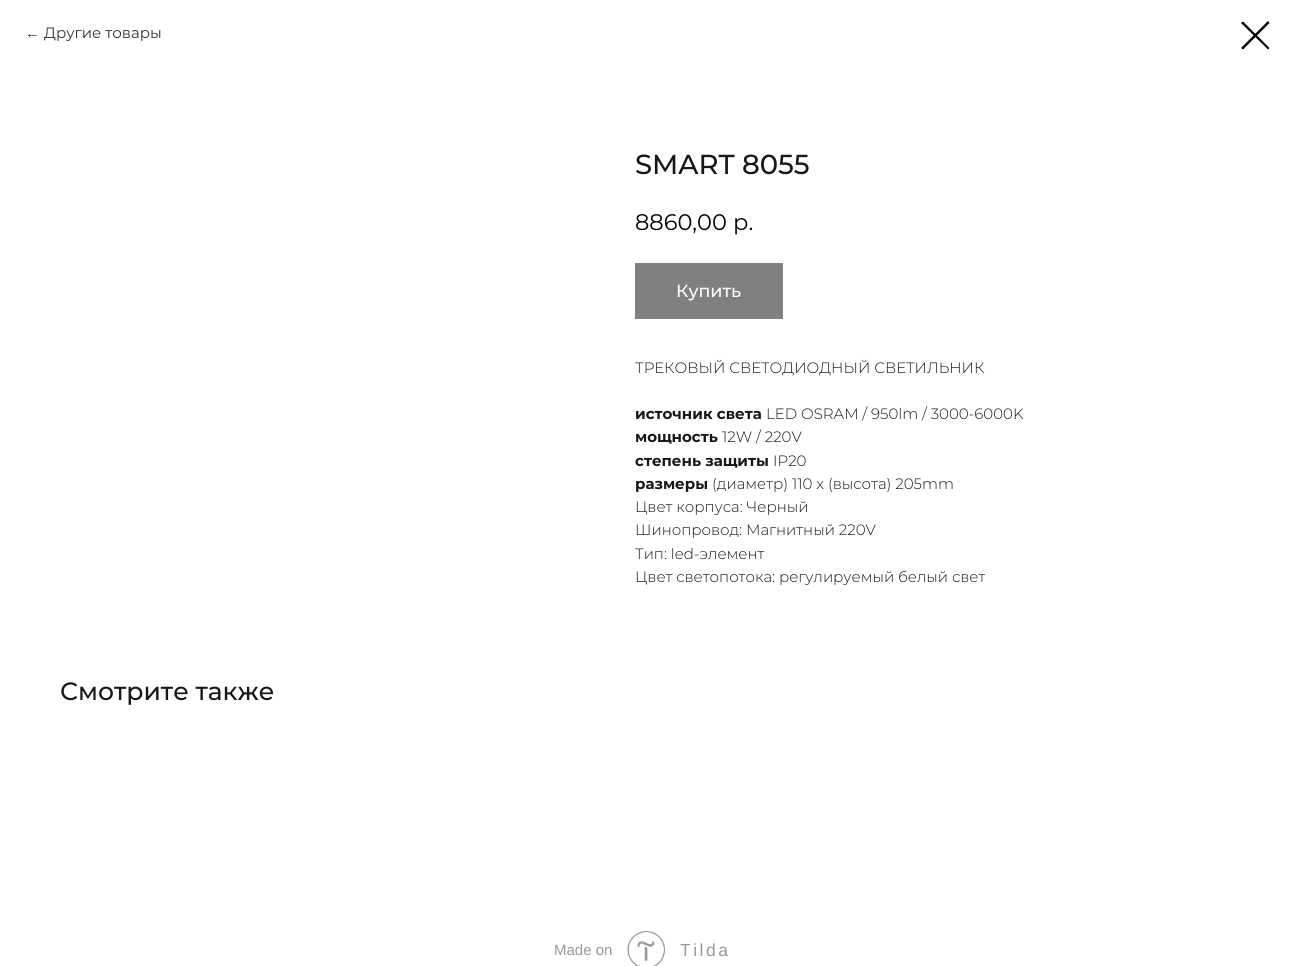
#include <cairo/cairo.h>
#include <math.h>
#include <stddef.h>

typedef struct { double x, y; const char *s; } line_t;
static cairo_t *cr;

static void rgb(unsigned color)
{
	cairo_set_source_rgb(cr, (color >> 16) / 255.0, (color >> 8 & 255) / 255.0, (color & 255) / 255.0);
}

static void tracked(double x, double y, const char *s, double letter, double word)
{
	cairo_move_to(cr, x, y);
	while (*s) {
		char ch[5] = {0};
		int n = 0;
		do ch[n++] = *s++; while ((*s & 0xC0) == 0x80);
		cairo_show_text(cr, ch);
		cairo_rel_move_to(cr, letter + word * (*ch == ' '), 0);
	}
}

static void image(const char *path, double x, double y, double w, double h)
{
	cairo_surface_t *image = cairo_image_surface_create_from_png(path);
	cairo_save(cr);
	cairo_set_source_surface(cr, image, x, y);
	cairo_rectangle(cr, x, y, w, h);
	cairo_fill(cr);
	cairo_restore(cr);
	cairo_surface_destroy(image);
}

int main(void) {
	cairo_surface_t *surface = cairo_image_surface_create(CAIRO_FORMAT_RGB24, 1295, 966);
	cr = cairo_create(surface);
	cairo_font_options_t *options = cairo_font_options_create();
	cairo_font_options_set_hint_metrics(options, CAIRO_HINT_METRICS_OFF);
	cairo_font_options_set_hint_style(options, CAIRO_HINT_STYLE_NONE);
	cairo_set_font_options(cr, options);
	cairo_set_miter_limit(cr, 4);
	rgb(0xffffff);
	cairo_paint(cr);
	rgb(0x000000);
	cairo_set_fill_rule(cr, CAIRO_FILL_RULE_EVEN_ODD);
	cairo_new_path(cr);
	cairo_move_to(cr, 1241, 23);
	cairo_line_to(cr, 1243, 21.5);
	cairo_line_to(cr, 1269.5, 48);
	cairo_line_to(cr, 1268, 49.5);
	cairo_close_path(cr);
	cairo_fill(cr);
	cairo_new_path(cr);
	cairo_move_to(cr, 1268, 21);
	cairo_line_to(cr, 1269.5, 23);
	cairo_line_to(cr, 1243, 49.5);
	cairo_line_to(cr, 1241, 48);
	cairo_close_path(cr);
	cairo_fill(cr);
	rgb(0x808080);
	cairo_rectangle(cr, 635, 263, 148, 56);
	cairo_fill(cr);
	image("img/1.png", 627, 931, 38, 35);
	cairo_select_font_face(cr, "Liberation Sans", CAIRO_FONT_SLANT_NORMAL, CAIRO_FONT_WEIGHT_NORMAL);
	cairo_set_font_size(cr, 15);
	rgb(0x333333);
	cairo_move_to(cr, 25, 38);
	cairo_show_text(cr, "←");
	cairo_select_font_face(cr, "Montserrat", CAIRO_FONT_SLANT_NORMAL, CAIRO_FONT_WEIGHT_NORMAL);
	cairo_move_to(cr, 44, 38);
	cairo_show_text(cr, "Другие товары");
	cairo_select_font_face(cr, "Montserrat Medium", CAIRO_FONT_SLANT_NORMAL, CAIRO_FONT_WEIGHT_NORMAL);
	cairo_set_font_size(cr, 27.5);
	rgb(0x171717);
	cairo_move_to(cr, 635, 174);
	cairo_show_text(cr, "SMART 8055");
	cairo_select_font_face(cr, "Montserrat", CAIRO_FONT_SLANT_NORMAL, CAIRO_FONT_WEIGHT_NORMAL);
	cairo_set_font_size(cr, 22.5);
	rgb(0x000000);
	cairo_move_to(cr, 635, 230);
	cairo_show_text(cr, "8860,00");
	cairo_move_to(cr, 733, 230);
	cairo_show_text(cr, "р.");
	cairo_select_font_face(cr, "Montserrat Medium", CAIRO_FONT_SLANT_NORMAL, CAIRO_FONT_WEIGHT_NORMAL);
	cairo_set_font_size(cr, 17.5);
	rgb(0xffffff);
	cairo_move_to(cr, 676, 297);
	cairo_show_text(cr, "Купить");
	cairo_select_font_face(cr, "Montserrat Light", CAIRO_FONT_SLANT_NORMAL, CAIRO_FONT_WEIGHT_NORMAL);
	cairo_set_font_size(cr, 15);
	rgb(0x171717);
	cairo_move_to(cr, 635, 373);
	cairo_show_text(cr, "ТРЕКОВЫЙ СВЕТОДИОДНЫЙ СВЕТИЛЬНИК");
	cairo_select_font_face(cr, "Montserrat", CAIRO_FONT_SLANT_NORMAL, CAIRO_FONT_WEIGHT_BOLD);
	cairo_move_to(cr, 635, 419);
	cairo_show_text(cr, "источник света");
	cairo_select_font_face(cr, "Montserrat Light", CAIRO_FONT_SLANT_NORMAL, CAIRO_FONT_WEIGHT_NORMAL);
	cairo_move_to(cr, 766, 419);
	cairo_show_text(cr, "LED OSRAM / 950lm / 3000-6000K");
	cairo_select_font_face(cr, "Montserrat", CAIRO_FONT_SLANT_NORMAL, CAIRO_FONT_WEIGHT_BOLD);
	cairo_move_to(cr, 635, 442);
	cairo_show_text(cr, "мощность");
	cairo_select_font_face(cr, "Montserrat Light", CAIRO_FONT_SLANT_NORMAL, CAIRO_FONT_WEIGHT_NORMAL);
	cairo_move_to(cr, 722, 442);
	cairo_show_text(cr, "12W / 220V");
	cairo_select_font_face(cr, "Montserrat", CAIRO_FONT_SLANT_NORMAL, CAIRO_FONT_WEIGHT_BOLD);
	cairo_move_to(cr, 635, 466);
	cairo_show_text(cr, "степень защиты");
	cairo_select_font_face(cr, "Montserrat Light", CAIRO_FONT_SLANT_NORMAL, CAIRO_FONT_WEIGHT_NORMAL);
	cairo_move_to(cr, 773, 466);
	cairo_show_text(cr, "IP20");
	cairo_select_font_face(cr, "Montserrat", CAIRO_FONT_SLANT_NORMAL, CAIRO_FONT_WEIGHT_BOLD);
	cairo_move_to(cr, 635, 489);
	cairo_show_text(cr, "размеры");
	cairo_select_font_face(cr, "Montserrat Light", CAIRO_FONT_SLANT_NORMAL, CAIRO_FONT_WEIGHT_NORMAL);
	{
		static const line_t items[] = {
			{712, 489, "(диаметр) 110 x (высота) 205mm"},
			{635, 512, "Цвет корпуса: Черный"},
			{635, 535, "Шинопровод: Магнитный 220V"},
			{635, 559, "Тип: led-элемент"},
			{635, 582, "Цвет светопотока: регулируемый белый свет"},
		};
		for (size_t i = 0; i < sizeof items / sizeof *items; i++) {
			cairo_move_to(cr, items[i].x, items[i].y);
			cairo_show_text(cr, items[i].s);
		}
	}
	cairo_select_font_face(cr, "Montserrat Medium", CAIRO_FONT_SLANT_NORMAL, CAIRO_FONT_WEIGHT_NORMAL);
	cairo_set_font_size(cr, 25);
	cairo_move_to(cr, 60, 700);
	cairo_show_text(cr, "Смотрите также");
	cairo_select_font_face(cr, "Liberation Sans", CAIRO_FONT_SLANT_NORMAL, CAIRO_FONT_WEIGHT_NORMAL);
	cairo_set_font_size(cr, 15);
	rgb(0x999999);
	cairo_move_to(cr, 554, 955);
	cairo_show_text(cr, "Made on");
	cairo_set_font_size(cr, 17.5);
	tracked(680, 956, "Tilda", 2.5, 0);
	cairo_surface_write_to_png(surface, "page.png");
	cairo_font_options_destroy(options);
	cairo_destroy(cr);
	cairo_surface_destroy(surface);
	return 0;
}
